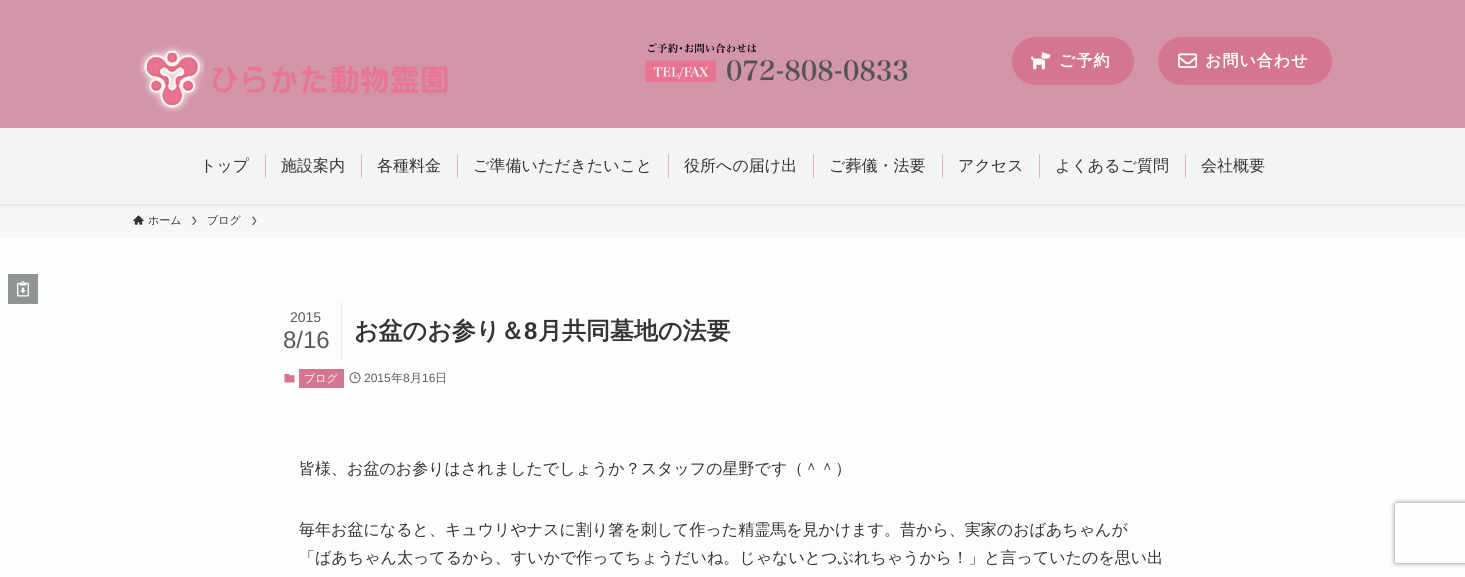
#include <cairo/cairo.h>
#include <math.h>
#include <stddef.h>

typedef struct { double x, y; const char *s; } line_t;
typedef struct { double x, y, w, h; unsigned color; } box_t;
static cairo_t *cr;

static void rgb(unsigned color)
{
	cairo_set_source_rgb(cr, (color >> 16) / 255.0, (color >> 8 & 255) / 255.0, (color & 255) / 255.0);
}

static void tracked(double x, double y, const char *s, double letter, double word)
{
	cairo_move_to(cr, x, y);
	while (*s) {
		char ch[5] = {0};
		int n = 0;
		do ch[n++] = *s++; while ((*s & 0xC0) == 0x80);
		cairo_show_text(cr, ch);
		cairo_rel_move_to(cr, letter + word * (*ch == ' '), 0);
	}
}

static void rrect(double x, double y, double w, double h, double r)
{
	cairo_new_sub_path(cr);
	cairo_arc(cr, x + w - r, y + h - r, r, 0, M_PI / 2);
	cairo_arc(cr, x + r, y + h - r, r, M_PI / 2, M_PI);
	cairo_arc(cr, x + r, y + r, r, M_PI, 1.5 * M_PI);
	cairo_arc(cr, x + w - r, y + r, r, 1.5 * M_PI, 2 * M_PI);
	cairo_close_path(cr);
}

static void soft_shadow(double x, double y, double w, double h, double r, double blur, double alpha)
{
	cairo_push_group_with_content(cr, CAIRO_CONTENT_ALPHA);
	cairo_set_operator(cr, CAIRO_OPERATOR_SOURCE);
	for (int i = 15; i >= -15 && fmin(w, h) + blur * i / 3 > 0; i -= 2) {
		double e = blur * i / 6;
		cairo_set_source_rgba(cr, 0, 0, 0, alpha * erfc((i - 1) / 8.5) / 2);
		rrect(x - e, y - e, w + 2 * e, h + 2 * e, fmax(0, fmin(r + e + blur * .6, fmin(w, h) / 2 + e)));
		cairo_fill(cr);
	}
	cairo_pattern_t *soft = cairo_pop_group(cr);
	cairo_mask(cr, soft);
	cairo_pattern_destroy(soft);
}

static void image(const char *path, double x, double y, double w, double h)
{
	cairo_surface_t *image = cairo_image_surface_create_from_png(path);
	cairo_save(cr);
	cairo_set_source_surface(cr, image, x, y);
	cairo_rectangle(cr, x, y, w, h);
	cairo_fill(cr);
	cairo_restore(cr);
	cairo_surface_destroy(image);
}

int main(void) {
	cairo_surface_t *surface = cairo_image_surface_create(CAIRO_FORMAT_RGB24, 1465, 577);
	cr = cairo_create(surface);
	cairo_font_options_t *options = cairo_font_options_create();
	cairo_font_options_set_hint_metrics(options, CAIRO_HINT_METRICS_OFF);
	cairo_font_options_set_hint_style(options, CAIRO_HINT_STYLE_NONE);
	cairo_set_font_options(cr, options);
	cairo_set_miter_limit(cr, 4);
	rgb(0xfdfdfd);
	cairo_paint(cr);
	rgb(0xf7f7f7);
	cairo_rectangle(cr, 0, 204, 1465, 34);
	cairo_fill(cr);
	rgb(0x000000);
	soft_shadow(0, 1, 1465, 204, 0, 2, 0.12);
	rgb(0xd396a8);
	cairo_rectangle(cr, 0, 0, 1465, 128);
	cairo_fill(cr);
	image("img/1.png", 139, 45, 309, 68);
	image("img/2.png", 645, 43, 263, 39);
	rgb(0xd47591);
	rrect(1012, 37, 122, 48, 24);
	cairo_fill(cr);
	image("img/3.png", 1031, 52, 20, 18);
	rrect(1158, 37, 174, 48, 24);
	cairo_fill(cr);
	image("img/4.png", 1178, 53, 19, 15);
	{
		static const box_t items[] = {
			{0, 128, 1465, 76, 0xf4f4f4},
			{265, 154, 1, 24, 0xe7afbd},
			{361, 154, 1, 24, 0xe7afbd},
			{457, 154, 1, 24, 0xe7afbd},
			{668, 154, 1, 24, 0xe7afbd},
			{813, 154, 1, 24, 0xe7afbd},
			{942, 154, 1, 24, 0xe7afbd},
			{1039, 154, 1, 24, 0xe7afbd},
			{1185, 154, 1, 24, 0xe7afbd},
		};
		for (size_t i = 0; i < sizeof items / sizeof *items; i++) {
			rgb(items[i].color);
			cairo_rectangle(cr, items[i].x, items[i].y, items[i].w, items[i].h);
			cairo_fill(cr);
		}
	}
	image("img/5.png", 133, 215, 11, 10);
	rgb(0x5a5a5a);
	cairo_new_path(cr);
	cairo_move_to(cr, 193.5, 216.5);
	cairo_line_to(cr, 192, 217);
	cairo_line_to(cr, 195, 221);
	cairo_line_to(cr, 192, 225);
	cairo_line_to(cr, 193.5, 225);
	cairo_line_to(cr, 196.5, 221);
	cairo_close_path(cr);
	cairo_fill(cr);
	cairo_new_path(cr);
	cairo_move_to(cr, 253.5, 216.5);
	cairo_line_to(cr, 252, 217);
	cairo_line_to(cr, 255, 221);
	cairo_line_to(cr, 252, 225);
	cairo_line_to(cr, 253.5, 225);
	cairo_line_to(cr, 256.5, 221);
	cairo_close_path(cr);
	cairo_fill(cr);
	rgb(0x909494);
	cairo_rectangle(cr, 8, 274, 30, 30);
	cairo_fill(cr);
	image("img/6.png", 17, 281, 12, 16);
	rgb(0xe8e8e8);
	cairo_rectangle(cr, 341, 302, 1, 58);
	cairo_fill(cr);
	image("img/7.png", 284, 373, 11, 10);
	rgb(0xd47591);
	cairo_rectangle(cr, 299, 369, 45, 19);
	cairo_fill(cr);
	image("img/8.png", 349, 372, 12, 12);
	cairo_save(cr);
	cairo_set_fill_rule(cr, CAIRO_FILL_RULE_EVEN_ODD);
	cairo_new_path(cr);
	cairo_move_to(cr, 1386, 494);
	cairo_line_to(cr, 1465, 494);
	cairo_line_to(cr, 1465, 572);
	cairo_line_to(cr, 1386, 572);
	cairo_close_path(cr);
	cairo_move_to(cr, 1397, 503);
	cairo_line_to(cr, 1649, 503);
	cairo_curve_to(cr, 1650, 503, 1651, 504, 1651, 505);
	cairo_line_to(cr, 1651, 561);
	cairo_curve_to(cr, 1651, 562, 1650, 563, 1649, 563);
	cairo_line_to(cr, 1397, 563);
	cairo_curve_to(cr, 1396, 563, 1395, 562, 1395, 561);
	cairo_line_to(cr, 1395, 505);
	cairo_curve_to(cr, 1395, 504, 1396, 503, 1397, 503);
	cairo_close_path(cr);
	cairo_clip(cr);
	rgb(0x808080);
	soft_shadow(1395, 503, 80, 60, 2, 2.5, 1);
	cairo_restore(cr);
	cairo_select_font_face(cr, "WenQuanYi Zen Hei", CAIRO_FONT_SLANT_NORMAL, CAIRO_FONT_WEIGHT_BOLD);
	cairo_set_font_size(cr, 16);
	rgb(0xffffff);
	tracked(1059, 66, "ご予約", 1, 0);
	tracked(1205, 66, "お問い合わせ", 1, 0);
	cairo_select_font_face(cr, "WenQuanYi Zen Hei Medium", CAIRO_FONT_SLANT_NORMAL, CAIRO_FONT_WEIGHT_NORMAL);
	rgb(0x333333);
	{
		static const line_t items[] = {
			{200, 171, "トップ"},
			{281, 171, "施設案内"},
			{377, 171, "各種料金"},
			{473, 171, "ご準備いただきたいこと"},
			{684, 171, "役所への届け出"},
			{829, 171, "ご葬儀・法要"},
			{958, 171, "アクセス"},
			{1055, 171, "よくあるご質問"},
			{1201, 171, "会社概要"},
		};
		for (size_t i = 0; i < sizeof items / sizeof *items; i++) {
			cairo_move_to(cr, items[i].x, items[i].y);
			cairo_show_text(cr, items[i].s);
		}
	}
	cairo_set_font_size(cr, 11);
	cairo_move_to(cr, 148, 224);
	cairo_show_text(cr, "ホーム");
	cairo_move_to(cr, 207, 224);
	cairo_show_text(cr, "ブログ");
	cairo_select_font_face(cr, "Liberation Sans", CAIRO_FONT_SLANT_NORMAL, CAIRO_FONT_WEIGHT_NORMAL);
	cairo_set_font_size(cr, 14);
	rgb(0x5b5b5b);
	cairo_move_to(cr, 290, 322);
	cairo_show_text(cr, "2015");
	cairo_set_font_size(cr, 24);
	cairo_move_to(cr, 283, 348);
	cairo_show_text(cr, "8/16");
	cairo_select_font_face(cr, "WenQuanYi Zen Hei", CAIRO_FONT_SLANT_NORMAL, CAIRO_FONT_WEIGHT_BOLD);
	rgb(0x333333);
	cairo_move_to(cr, 354, 339);
	cairo_show_text(cr, "お盆のお参り＆");
	cairo_select_font_face(cr, "Liberation Sans", CAIRO_FONT_SLANT_NORMAL, CAIRO_FONT_WEIGHT_BOLD);
	cairo_move_to(cr, 524, 339);
	cairo_show_text(cr, "8");
	cairo_select_font_face(cr, "WenQuanYi Zen Hei", CAIRO_FONT_SLANT_NORMAL, CAIRO_FONT_WEIGHT_BOLD);
	cairo_move_to(cr, 538, 339);
	cairo_show_text(cr, "月共同墓地の法要");
	cairo_select_font_face(cr, "WenQuanYi Zen Hei Medium", CAIRO_FONT_SLANT_NORMAL, CAIRO_FONT_WEIGHT_NORMAL);
	cairo_set_font_size(cr, 11);
	rgb(0xffffff);
	cairo_move_to(cr, 304, 382);
	cairo_show_text(cr, "ブログ");
	cairo_select_font_face(cr, "Liberation Sans", CAIRO_FONT_SLANT_NORMAL, CAIRO_FONT_WEIGHT_NORMAL);
	cairo_set_font_size(cr, 12);
	rgb(0x5b5b5b);
	cairo_move_to(cr, 364, 382);
	cairo_show_text(cr, "2015");
	cairo_select_font_face(cr, "WenQuanYi Zen Hei Medium", CAIRO_FONT_SLANT_NORMAL, CAIRO_FONT_WEIGHT_NORMAL);
	cairo_move_to(cr, 391, 382);
	cairo_show_text(cr, "年");
	cairo_select_font_face(cr, "Liberation Sans", CAIRO_FONT_SLANT_NORMAL, CAIRO_FONT_WEIGHT_NORMAL);
	cairo_move_to(cr, 403, 382);
	cairo_show_text(cr, "8");
	cairo_select_font_face(cr, "WenQuanYi Zen Hei Medium", CAIRO_FONT_SLANT_NORMAL, CAIRO_FONT_WEIGHT_NORMAL);
	cairo_move_to(cr, 410, 382);
	cairo_show_text(cr, "月");
	cairo_select_font_face(cr, "Liberation Sans", CAIRO_FONT_SLANT_NORMAL, CAIRO_FONT_WEIGHT_NORMAL);
	cairo_move_to(cr, 422, 382);
	cairo_show_text(cr, "16");
	cairo_select_font_face(cr, "WenQuanYi Zen Hei Medium", CAIRO_FONT_SLANT_NORMAL, CAIRO_FONT_WEIGHT_NORMAL);
	cairo_move_to(cr, 435, 382);
	cairo_show_text(cr, "日");
	cairo_set_font_size(cr, 16);
	rgb(0x333333);
	{
		static const line_t items[] = {
			{299, 474, "皆様、お盆のお参りはされましたでしょうか？スタッフの星野です（＾＾）"},
			{299, 535, "毎年お盆になると、キュウリやナスに割り箸を刺して作った精霊馬を見かけます。昔から、実家のおばあちゃんが"},
			{299, 563, "「ばあちゃん太ってるから、すいかで作ってちょうだいね。じゃないとつぶれちゃうから！」と言っていたのを思い出"},
		};
		for (size_t i = 0; i < sizeof items / sizeof *items; i++) {
			cairo_move_to(cr, items[i].x, items[i].y);
			cairo_show_text(cr, items[i].s);
		}
	}
	cairo_surface_write_to_png(surface, "page.png");
	cairo_font_options_destroy(options);
	cairo_destroy(cr);
	cairo_surface_destroy(surface);
	return 0;
}
